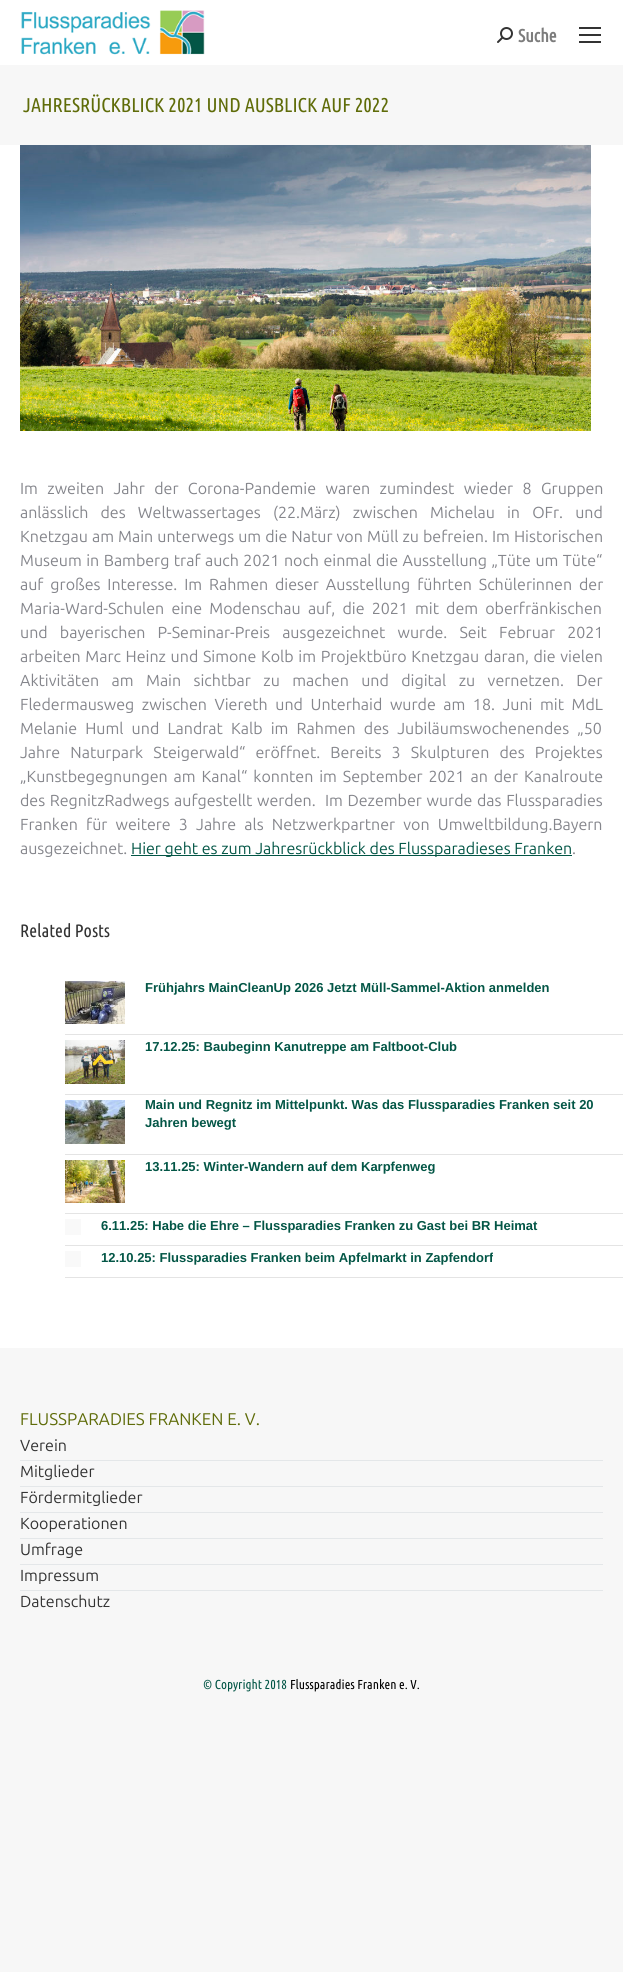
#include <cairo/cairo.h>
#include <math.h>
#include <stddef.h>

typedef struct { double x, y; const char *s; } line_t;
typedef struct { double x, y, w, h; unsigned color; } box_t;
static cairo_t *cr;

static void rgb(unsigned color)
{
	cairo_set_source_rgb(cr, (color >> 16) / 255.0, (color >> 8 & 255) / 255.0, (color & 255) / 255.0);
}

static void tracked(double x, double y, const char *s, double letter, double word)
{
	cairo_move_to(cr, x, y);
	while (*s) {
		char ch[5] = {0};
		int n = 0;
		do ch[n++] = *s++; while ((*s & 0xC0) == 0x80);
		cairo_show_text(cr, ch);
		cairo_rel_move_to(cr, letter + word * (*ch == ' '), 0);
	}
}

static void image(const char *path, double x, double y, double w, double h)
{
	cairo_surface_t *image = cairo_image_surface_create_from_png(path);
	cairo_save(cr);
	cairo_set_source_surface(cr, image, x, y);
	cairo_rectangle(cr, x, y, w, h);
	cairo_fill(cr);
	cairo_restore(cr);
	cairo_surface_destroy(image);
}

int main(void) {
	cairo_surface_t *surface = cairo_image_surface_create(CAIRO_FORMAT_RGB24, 623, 1972);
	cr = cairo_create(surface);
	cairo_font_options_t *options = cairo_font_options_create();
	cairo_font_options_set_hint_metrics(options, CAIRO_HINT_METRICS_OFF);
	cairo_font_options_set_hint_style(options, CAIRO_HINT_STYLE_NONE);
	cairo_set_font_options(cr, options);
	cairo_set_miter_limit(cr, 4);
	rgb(0xf7f7f7);
	cairo_paint(cr);
	rgb(0xffffff);
	cairo_rectangle(cr, 0, 0, 623, 1348);
	cairo_fill(cr);
	image("img/1.png", 21, 10, 184, 45);
	image("img/2.png", 497, 27, 16, 16);
	{
		static const box_t items[] = {
			{579, 27, 22, 2, 0x333333},
			{579, 34, 22, 2, 0x333333},
			{579, 41, 22, 2, 0x333333},
			{0, 65, 623, 80, 0xf7f7f7},
		};
		for (size_t i = 0; i < sizeof items / sizeof *items; i++) {
			rgb(items[i].color);
			cairo_rectangle(cr, items[i].x, items[i].y, items[i].w, items[i].h);
			cairo_fill(cr);
		}
	}
	image("img/3.png", 20, 145, 571, 286);
	rgb(0x035646);
	cairo_rectangle(cr, 131, 855, 441, 1);
	cairo_fill(cr);
	rgb(0xe4e4e4);
	cairo_rectangle(cr, 65, 1034, 558, 1);
	cairo_fill(cr);
	image("img/4.png", 65, 981, 60, 43);
	cairo_rectangle(cr, 65, 1094, 558, 1);
	cairo_fill(cr);
	image("img/5.png", 65, 1040, 60, 44);
	cairo_rectangle(cr, 65, 1154, 558, 1);
	cairo_fill(cr);
	image("img/6.png", 65, 1100, 60, 44);
	cairo_rectangle(cr, 65, 1213, 558, 1);
	cairo_fill(cr);
	image("img/7.png", 65, 1160, 60, 43);
	{
		static const box_t items[] = {
			{65, 1245, 558, 1, 0xe4e4e4},
			{65, 1219, 16, 16, 0xf9f9f9},
			{65, 1277, 558, 1, 0xe4e4e4},
			{65, 1251, 16, 16, 0xf9f9f9},
			{20, 1460, 583, 1, 0xe4e7e9},
			{20, 1486, 583, 1, 0xe4e7e9},
			{20, 1512, 583, 1, 0xe4e7e9},
			{20, 1538, 583, 1, 0xe4e7e9},
			{20, 1564, 583, 1, 0xe4e7e9},
			{20, 1590, 583, 1, 0xe4e7e9},
		};
		for (size_t i = 0; i < sizeof items / sizeof *items; i++) {
			rgb(items[i].color);
			cairo_rectangle(cr, items[i].x, items[i].y, items[i].w, items[i].h);
			cairo_fill(cr);
		}
	}
	cairo_select_font_face(cr, "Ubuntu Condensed", CAIRO_FONT_SLANT_NORMAL, CAIRO_FONT_WEIGHT_BOLD);
	cairo_set_font_size(cr, 18);
	rgb(0x7c7c7c);
	cairo_move_to(cr, 518, 42);
	cairo_show_text(cr, "Suche");
	cairo_select_font_face(cr, "Ubuntu Condensed", CAIRO_FONT_SLANT_NORMAL, CAIRO_FONT_WEIGHT_NORMAL);
	cairo_set_font_size(cr, 20);
	rgb(0x5f6c09);
	cairo_move_to(cr, 23, 112);
	cairo_show_text(cr, "JAHRESRÜCKBLICK 2021 UND AUSBLICK AUF 2022");
	cairo_select_font_face(cr, "Ubuntu", CAIRO_FONT_SLANT_NORMAL, CAIRO_FONT_WEIGHT_NORMAL);
	cairo_set_font_size(cr, 16);
	rgb(0x85868c);
	tracked(20, 494, "Im zweiten Jahr der Corona-Pandemie waren zumindest wieder 8 Gruppen", 0, 5.75);
	tracked(20, 518, "anlässlich des Weltwassertages (22.März) zwischen Michelau in OFr. und", 0, 8.5);
	tracked(20, 542, "Knetzgau am Main unterwegs um die Natur von Müll zu befreien. Im Historischen", 0, 0.4);
	tracked(20, 566, "Museum in Bamberg traf auch 2021 noch einmal die Ausstellung „Tüte um Tüte“", 0, 0.8);
	tracked(20, 590, "auf großes Interesse. Im Rahmen dieser Ausstellung führten Schülerinnen der", 0, 3.25);
	tracked(20, 614, "Maria-Ward-Schulen eine Modenschau auf, die 2021 mit dem oberfränkischen", 0, 3.5);
	tracked(20, 638, "und bayerischen P-Seminar-Preis ausgezeichnet wurde. Seit Februar 2021", 0, 8.5);
	tracked(20, 662, "arbeiten Marc Heinz und Simone Kolb im Projektbüro Knetzgau daran, die vielen", 0, 1);
	tracked(20, 686, "Aktivitäten am Main sichtbar zu machen und digital zu vernetzen. Der", 0, 8.75);
	tracked(20, 710, "Fledermausweg zwischen Viereth und Unterhaid wurde am 18. Juni mit MdL", 0, 3.9);
	tracked(20, 734, "Melanie Huml und Landrat Kalb im Rahmen des Jubiläumswochenendes „50", 0, 4.5);
	tracked(20, 758, "Jahre Naturpark Steigerwald“ eröffnet. Bereits 3 Skulpturen des Projektes", 0, 6.5);
	tracked(20, 782, "„Kunstbegegnungen am Kanal“ konnten im September 2021 an der Kanalroute", 0, 2.25);
	tracked(20, 806, "des RegnitzRadwegs aufgestellt werden.  Im Dezember wurde das Flussparadies", 0, 1);
	tracked(20, 830, "Franken für weitere 3 Jahre als Netzwerkpartner von Umweltbildung.Bayern", 0, 4.5);
	cairo_move_to(cr, 20, 854);
	cairo_show_text(cr, "ausgezeichnet.");
	rgb(0x035646);
	cairo_move_to(cr, 131, 854);
	cairo_show_text(cr, "Hier geht es zum Jahresrückblick des Flussparadieses Franken");
	rgb(0x85868c);
	cairo_move_to(cr, 572, 854);
	cairo_show_text(cr, ".");
	cairo_select_font_face(cr, "Ubuntu Condensed", CAIRO_FONT_SLANT_NORMAL, CAIRO_FONT_WEIGHT_NORMAL);
	cairo_set_font_size(cr, 18);
	rgb(0x333333);
	cairo_move_to(cr, 20, 937);
	cairo_show_text(cr, "Related Posts");
	cairo_select_font_face(cr, "Liberation Sans", CAIRO_FONT_SLANT_NORMAL, CAIRO_FONT_WEIGHT_BOLD);
	cairo_set_font_size(cr, 13);
	rgb(0x035646);
	{
		static const line_t items[] = {
			{145, 992, "Frühjahrs MainCleanUp 2026 Jetzt Müll-Sammel-Aktion anmelden"},
			{145, 1051, "17.12.25: Baubeginn Kanutreppe am Faltboot-Club"},
			{145, 1109, "Main und Regnitz im Mittelpunkt. Was das Flussparadies Franken seit 20"},
			{145, 1127, "Jahren bewegt"},
			{145, 1171, "13.11.25: Winter-Wandern auf dem Karpfenweg"},
			{101, 1230, "6.11.25: Habe die Ehre – Flussparadies Franken zu Gast bei BR Heimat"},
		};
		for (size_t i = 0; i < sizeof items / sizeof *items; i++) {
			cairo_move_to(cr, items[i].x, items[i].y);
			cairo_show_text(cr, items[i].s);
		}
	}
	cairo_save(cr);
	cairo_rectangle(cr, 65, 1246, 428, 26);
	cairo_clip(cr);
	cairo_move_to(cr, 101, 1262);
	cairo_show_text(cr, "12.10.25: Flussparadies Franken beim Apfelmarkt in Zapfendorf");
	cairo_restore(cr);
	cairo_select_font_face(cr, "Ubuntu", CAIRO_FONT_SLANT_NORMAL, CAIRO_FONT_WEIGHT_NORMAL);
	cairo_set_font_size(cr, 17);
	rgb(0x5f6c09);
	cairo_move_to(cr, 20, 1425);
	cairo_show_text(cr, "FLUSSPARADIES FRANKEN E. V.");
	cairo_set_font_size(cr, 16);
	rgb(0x333333);
	{
		static const line_t items[] = {
			{20, 1451, "Verein"},
			{20, 1477, "Mitglieder"},
			{20, 1503, "Fördermitglieder"},
			{20, 1529, "Kooperationen"},
			{20, 1555, "Umfrage"},
			{20, 1581, "Impressum"},
			{20, 1607, "Datenschutz"},
		};
		for (size_t i = 0; i < sizeof items / sizeof *items; i++) {
			cairo_move_to(cr, items[i].x, items[i].y);
			cairo_show_text(cr, items[i].s);
		}
	}
	cairo_select_font_face(cr, "Ubuntu Condensed", CAIRO_FONT_SLANT_NORMAL, CAIRO_FONT_WEIGHT_NORMAL);
	cairo_set_font_size(cr, 13);
	rgb(0x035646);
	cairo_move_to(cr, 203, 1689);
	cairo_show_text(cr, "© Copyright 2018");
	rgb(0x000000);
	cairo_move_to(cr, 290, 1689);
	cairo_show_text(cr, "Flussparadies Franken e. V.");
	cairo_surface_write_to_png(surface, "page.png");
	cairo_font_options_destroy(options);
	cairo_destroy(cr);
	cairo_surface_destroy(surface);
	return 0;
}
